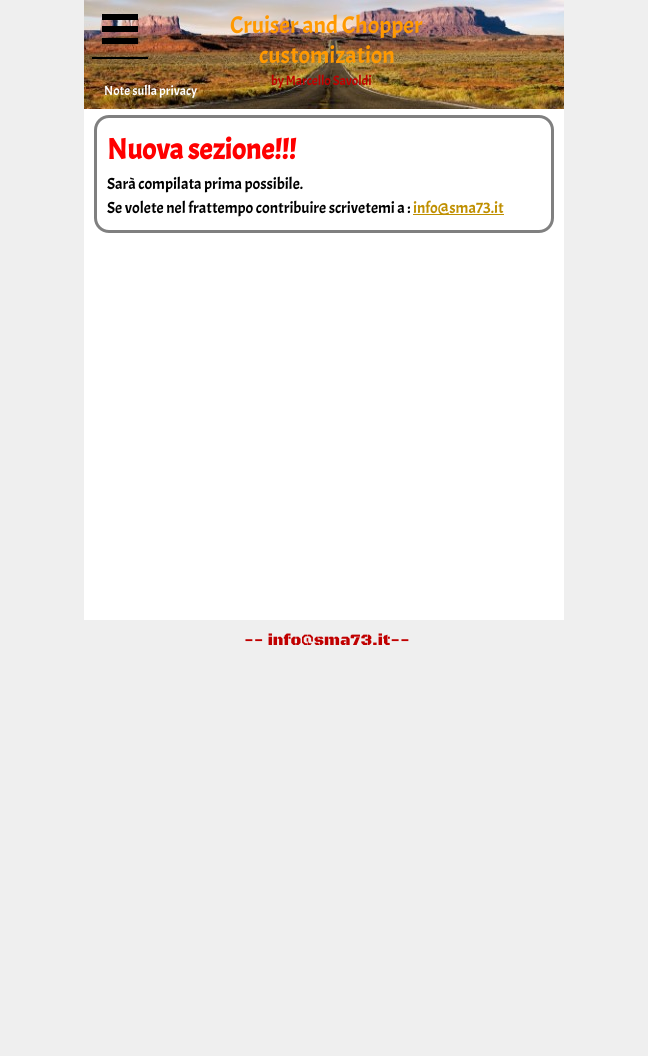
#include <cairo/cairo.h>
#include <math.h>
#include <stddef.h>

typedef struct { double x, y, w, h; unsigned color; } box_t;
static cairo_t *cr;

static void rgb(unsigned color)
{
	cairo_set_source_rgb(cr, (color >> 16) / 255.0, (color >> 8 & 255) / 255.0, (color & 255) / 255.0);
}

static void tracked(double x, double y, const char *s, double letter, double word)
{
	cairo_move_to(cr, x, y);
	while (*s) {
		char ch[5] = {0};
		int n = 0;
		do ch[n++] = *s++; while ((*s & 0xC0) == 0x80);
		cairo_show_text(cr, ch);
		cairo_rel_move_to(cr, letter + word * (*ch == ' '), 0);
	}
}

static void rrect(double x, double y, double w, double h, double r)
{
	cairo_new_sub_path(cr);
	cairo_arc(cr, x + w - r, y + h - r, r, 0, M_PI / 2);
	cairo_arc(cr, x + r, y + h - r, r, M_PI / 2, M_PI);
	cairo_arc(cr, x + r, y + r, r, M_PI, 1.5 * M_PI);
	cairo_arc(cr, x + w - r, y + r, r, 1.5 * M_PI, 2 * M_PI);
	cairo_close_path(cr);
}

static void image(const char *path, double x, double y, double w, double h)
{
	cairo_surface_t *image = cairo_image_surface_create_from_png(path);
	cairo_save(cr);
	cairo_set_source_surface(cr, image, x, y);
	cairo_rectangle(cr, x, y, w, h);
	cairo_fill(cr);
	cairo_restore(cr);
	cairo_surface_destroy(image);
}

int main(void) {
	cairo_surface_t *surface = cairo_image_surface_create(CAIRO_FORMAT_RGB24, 648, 1056);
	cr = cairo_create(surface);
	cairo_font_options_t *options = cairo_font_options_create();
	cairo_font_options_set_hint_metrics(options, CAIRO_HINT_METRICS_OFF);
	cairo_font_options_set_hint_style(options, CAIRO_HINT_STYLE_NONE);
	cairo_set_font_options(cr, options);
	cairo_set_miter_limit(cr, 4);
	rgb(0xefefef);
	cairo_paint(cr);
	image("img/1.png", 84, 0, 480, 109);
	{
		static const box_t items[] = {
			{92, 57, 56, 2, 0x000000},
			{102, 14, 36, 6, 0x000000},
			{102, 26, 36, 6, 0x000000},
			{102, 38, 36, 6, 0x000000},
			{84, 109, 480, 511, 0xffffff},
		};
		for (size_t i = 0; i < sizeof items / sizeof *items; i++) {
			rgb(items[i].color);
			cairo_rectangle(cr, items[i].x, items[i].y, items[i].w, items[i].h);
			cairo_fill(cr);
		}
	}
	rrect(95.5, 116.5, 457, 115, 13.5);
	rgb(0x808080);
	cairo_set_line_width(cr, 3);
	cairo_stroke(cr);
	rgb(0xbf8f00);
	cairo_rectangle(cr, 413, 214, 91, 1);
	cairo_fill(cr);
	cairo_select_font_face(cr, "Acme", CAIRO_FONT_SLANT_NORMAL, CAIRO_FONT_WEIGHT_NORMAL);
	cairo_set_font_size(cr, 24);
	rgb(0xff9900);
	cairo_move_to(cr, 230, 33);
	cairo_show_text(cr, "Cruiser and Chopper");
	cairo_move_to(cr, 259, 63);
	cairo_show_text(cr, "customization");
	cairo_set_font_size(cr, 13.5);
	rgb(0xc00000);
	tracked(271, 85, "by Marcello Savoldi", -0.1, 0);
	cairo_set_font_size(cr, 13.25);
	rgb(0xffffff);
	cairo_move_to(cr, 104, 95);
	cairo_show_text(cr, "Note sulla privacy");
	cairo_select_font_face(cr, "Acme", CAIRO_FONT_SLANT_NORMAL, CAIRO_FONT_WEIGHT_BOLD);
	cairo_set_font_size(cr, 29.25);
	rgb(0xff0000);
	cairo_move_to(cr, 107, 159);
	cairo_show_text(cr, "Nuova sezione!!!");
	cairo_select_font_face(cr, "Acme", CAIRO_FONT_SLANT_NORMAL, CAIRO_FONT_WEIGHT_NORMAL);
	cairo_set_font_size(cr, 16);
	rgb(0x000000);
	cairo_move_to(cr, 107, 189);
	cairo_show_text(cr, "Sarà compilata prima possibile.");
	cairo_move_to(cr, 107, 213);
	cairo_show_text(cr, "Se volete nel frattempo contribuire scrivetemi a :");
	rgb(0xbf8f00);
	cairo_move_to(cr, 413, 213);
	cairo_show_text(cr, "info@sma73.it");
	cairo_select_font_face(cr, "Black Ops One Black", CAIRO_FONT_SLANT_NORMAL, CAIRO_FONT_WEIGHT_NORMAL);
	rgb(0xc00000);
	cairo_move_to(cr, 244, 645);
	cairo_show_text(cr, "-- info@sma73.it--");
	cairo_surface_write_to_png(surface, "page.png");
	cairo_font_options_destroy(options);
	cairo_destroy(cr);
	cairo_surface_destroy(surface);
	return 0;
}
